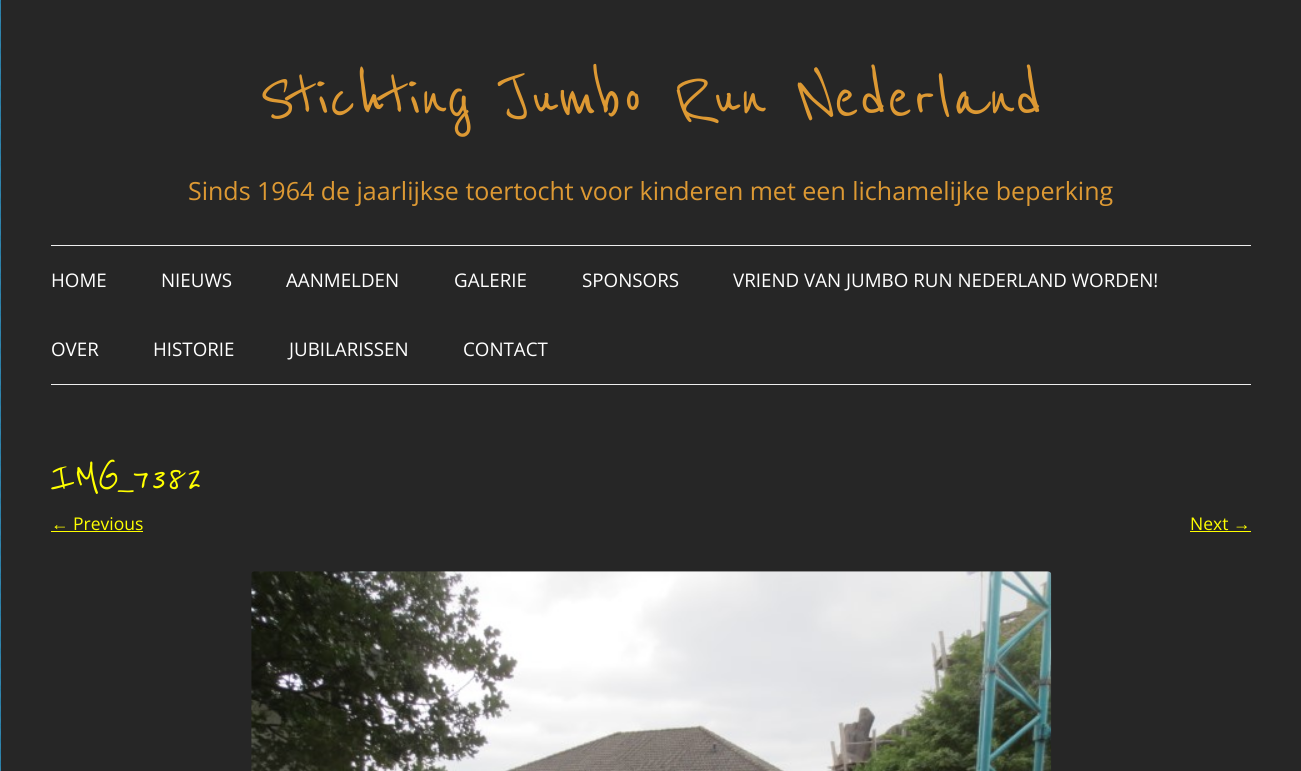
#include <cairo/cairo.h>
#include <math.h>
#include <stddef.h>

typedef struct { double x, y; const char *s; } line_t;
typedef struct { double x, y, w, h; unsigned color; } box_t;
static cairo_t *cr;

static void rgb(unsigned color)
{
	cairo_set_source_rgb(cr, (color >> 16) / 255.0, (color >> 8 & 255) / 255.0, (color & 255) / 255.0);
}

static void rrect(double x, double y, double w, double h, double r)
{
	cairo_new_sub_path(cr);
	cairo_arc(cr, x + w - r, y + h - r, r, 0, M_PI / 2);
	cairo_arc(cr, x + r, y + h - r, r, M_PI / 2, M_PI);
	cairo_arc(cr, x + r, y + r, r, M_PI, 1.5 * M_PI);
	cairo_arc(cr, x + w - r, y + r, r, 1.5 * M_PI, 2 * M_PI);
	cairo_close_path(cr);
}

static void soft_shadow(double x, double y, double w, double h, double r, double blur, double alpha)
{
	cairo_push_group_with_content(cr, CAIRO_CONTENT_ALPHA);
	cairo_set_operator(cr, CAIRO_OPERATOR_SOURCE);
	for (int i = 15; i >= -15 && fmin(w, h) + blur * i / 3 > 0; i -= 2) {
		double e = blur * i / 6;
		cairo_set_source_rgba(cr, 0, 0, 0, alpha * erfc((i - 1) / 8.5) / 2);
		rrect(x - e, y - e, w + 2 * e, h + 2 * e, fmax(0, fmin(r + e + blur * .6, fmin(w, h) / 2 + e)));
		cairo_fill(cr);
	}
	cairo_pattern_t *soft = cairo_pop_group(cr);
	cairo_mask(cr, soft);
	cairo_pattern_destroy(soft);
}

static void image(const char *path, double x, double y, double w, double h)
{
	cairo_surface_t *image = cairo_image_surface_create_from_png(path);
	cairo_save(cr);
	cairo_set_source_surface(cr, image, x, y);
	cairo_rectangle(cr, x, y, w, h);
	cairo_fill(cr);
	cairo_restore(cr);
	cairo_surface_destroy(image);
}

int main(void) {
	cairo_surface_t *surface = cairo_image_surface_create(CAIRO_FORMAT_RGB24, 1301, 771);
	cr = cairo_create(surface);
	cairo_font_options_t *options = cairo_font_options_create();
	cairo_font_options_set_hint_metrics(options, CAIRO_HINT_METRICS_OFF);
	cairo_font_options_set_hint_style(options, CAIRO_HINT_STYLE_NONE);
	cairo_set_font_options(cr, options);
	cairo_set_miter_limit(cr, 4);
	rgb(0xffffff);
	cairo_paint(cr);
	image("img/1.png", 0, 0, 1, 771);
	rgb(0x646464);
	soft_shadow(1, 3, 1300, 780, 0, 4, 0.3);
	{
		static const box_t items[] = {
			{1, 0, 1300, 771, 0x262626},
			{51, 245, 1200, 1, 0xededed},
			{51, 384, 1200, 1, 0xededed},
			{51, 531, 92, 1, 0xffff00},
			{1190, 531, 61, 1, 0xffff00},
		};
		for (size_t i = 0; i < sizeof items / sizeof *items; i++) {
			rgb(items[i].color);
			cairo_rectangle(cr, items[i].x, items[i].y, items[i].w, items[i].h);
			cairo_fill(cr);
		}
	}
	image("img/2.png", 251, 571, 801, 200);
	cairo_select_font_face(cr, "Reenie Beanie Medium", CAIRO_FONT_SLANT_NORMAL, CAIRO_FONT_WEIGHT_NORMAL);
	cairo_set_font_size(cr, 75);
	rgb(0xdd9933);
	cairo_move_to(cr, 259, 118);
	cairo_show_text(cr, "Stichting Jumbo Run Nederland");
	cairo_select_font_face(cr, "Open Sans", CAIRO_FONT_SLANT_NORMAL, CAIRO_FONT_WEIGHT_NORMAL);
	cairo_set_font_size(cr, 25);
	cairo_move_to(cr, 188, 200);
	cairo_show_text(cr, "Sinds 1964 de jaarlijkse toertocht voor kinderen met een lichamelijke beperking");
	cairo_set_font_size(cr, 18.75);
	rgb(0xffffff);
	{
		static const line_t items[] = {
			{51, 287, "HOME"},
			{161, 287, "NIEUWS"},
			{286, 287, "AANMELDEN"},
			{454, 287, "GALERIE"},
			{582, 287, "SPONSORS"},
			{733, 287, "VRIEND VAN JUMBO RUN NEDERLAND WORDEN!"},
			{51, 356, "OVER"},
			{153, 356, "HISTORIE"},
			{289, 356, "JUBILARISSEN"},
			{463, 356, "CONTACT"},
		};
		for (size_t i = 0; i < sizeof items / sizeof *items; i++) {
			cairo_move_to(cr, items[i].x, items[i].y);
			cairo_show_text(cr, items[i].s);
		}
	}
	cairo_select_font_face(cr, "Reenie Beanie Medium", CAIRO_FONT_SLANT_NORMAL, CAIRO_FONT_WEIGHT_NORMAL);
	cairo_set_font_size(cr, 45);
	rgb(0xffff00);
	cairo_move_to(cr, 51, 489);
	cairo_show_text(cr, "IMG_7382");
	cairo_select_font_face(cr, "Liberation Sans", CAIRO_FONT_SLANT_NORMAL, CAIRO_FONT_WEIGHT_NORMAL);
	cairo_set_font_size(cr, 17.5);
	cairo_move_to(cr, 51, 530);
	cairo_show_text(cr, "←");
	cairo_select_font_face(cr, "Open Sans", CAIRO_FONT_SLANT_NORMAL, CAIRO_FONT_WEIGHT_NORMAL);
	cairo_move_to(cr, 73, 530);
	cairo_show_text(cr, "Previous");
	cairo_move_to(cr, 1190, 530);
	cairo_show_text(cr, "Next");
	cairo_select_font_face(cr, "Liberation Sans", CAIRO_FONT_SLANT_NORMAL, CAIRO_FONT_WEIGHT_NORMAL);
	cairo_move_to(cr, 1233, 530);
	cairo_show_text(cr, "→");
	cairo_surface_write_to_png(surface, "page.png");
	cairo_font_options_destroy(options);
	cairo_destroy(cr);
	cairo_surface_destroy(surface);
	return 0;
}
